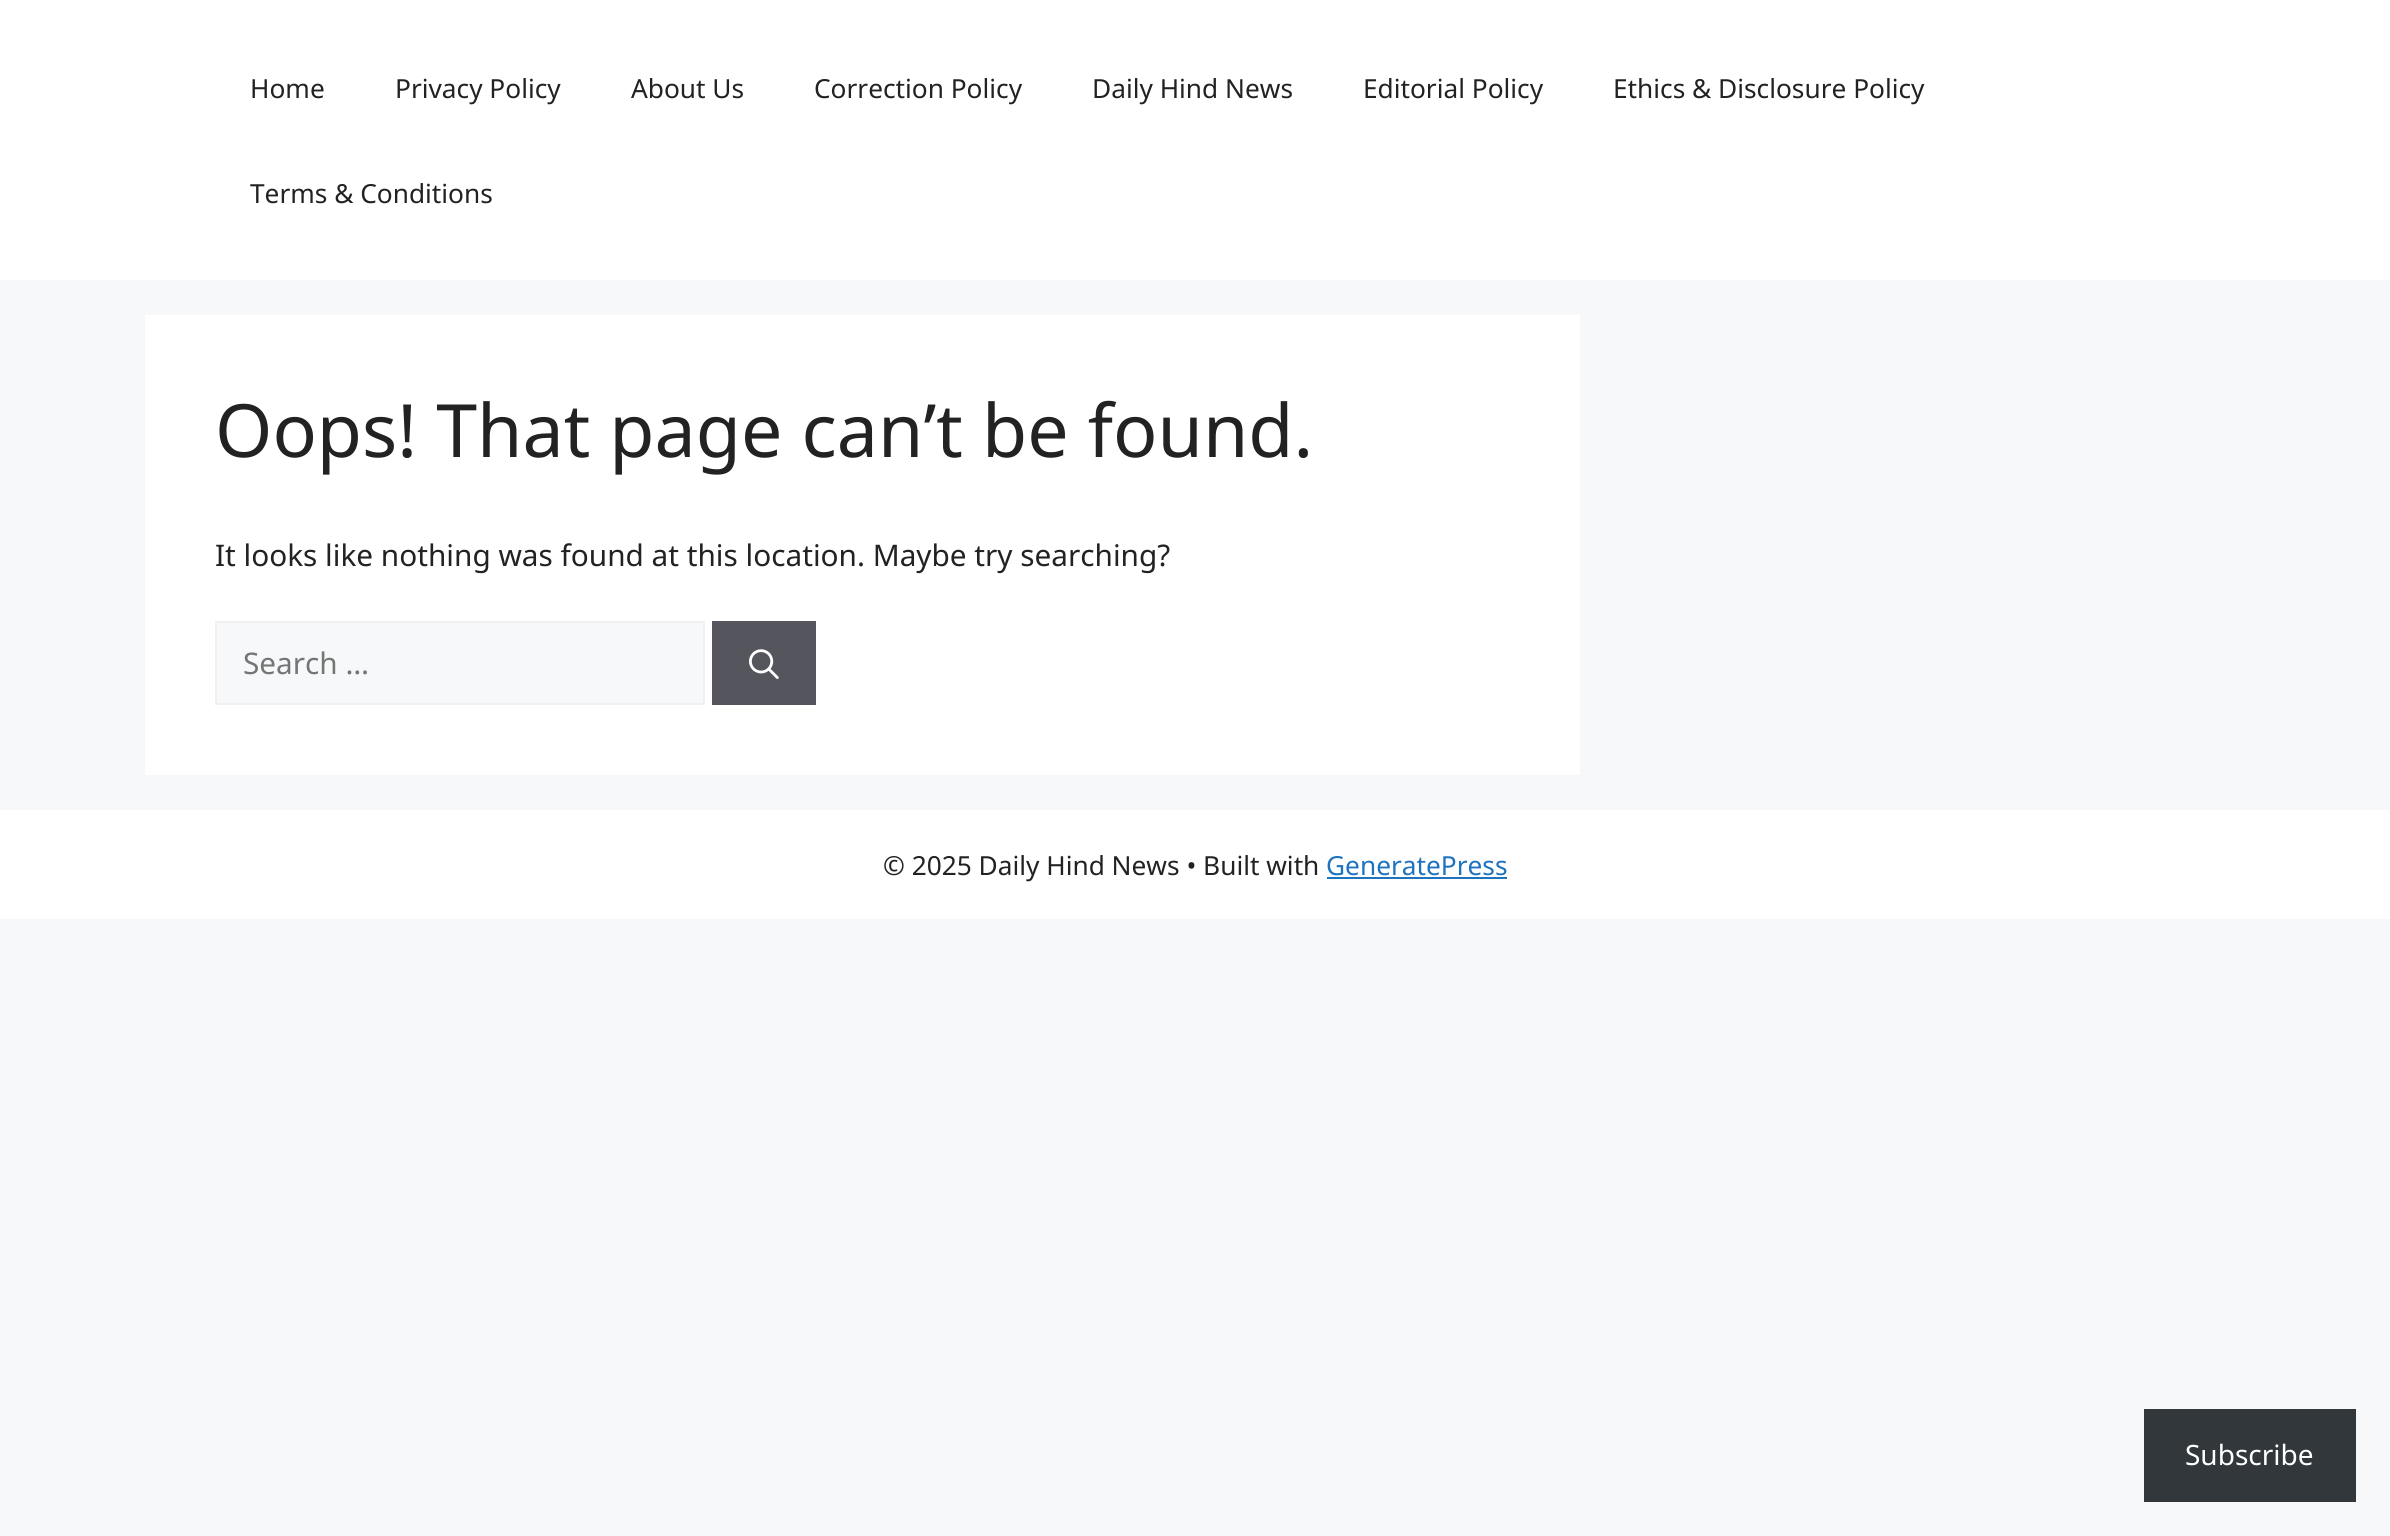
#include <cairo/cairo.h>
#include <math.h>
#include <stddef.h>

typedef struct { double x, y; const char *s; } line_t;
typedef struct { double x, y, w, h; unsigned color; } box_t;
static cairo_t *cr;

static void rgb(unsigned color)
{
	cairo_set_source_rgb(cr, (color >> 16) / 255.0, (color >> 8 & 255) / 255.0, (color & 255) / 255.0);
}

static void image(const char *path, double x, double y, double w, double h)
{
	cairo_surface_t *image = cairo_image_surface_create_from_png(path);
	cairo_save(cr);
	cairo_set_source_surface(cr, image, x, y);
	cairo_rectangle(cr, x, y, w, h);
	cairo_fill(cr);
	cairo_restore(cr);
	cairo_surface_destroy(image);
}

int main(void) {
	cairo_surface_t *surface = cairo_image_surface_create(CAIRO_FORMAT_RGB24, 2390, 1536);
	cr = cairo_create(surface);
	cairo_font_options_t *options = cairo_font_options_create();
	cairo_font_options_set_hint_metrics(options, CAIRO_HINT_METRICS_OFF);
	cairo_font_options_set_hint_style(options, CAIRO_HINT_STYLE_NONE);
	cairo_set_font_options(cr, options);
	cairo_set_miter_limit(cr, 4);
	rgb(0xf7f8f9);
	cairo_paint(cr);
	rgb(0xffffff);
	cairo_rectangle(cr, 0, 0, 2390, 280);
	cairo_fill(cr);
	cairo_rectangle(cr, 145, 315, 1435, 460);
	cairo_fill(cr);
	rgb(0xf7f8f9);
	cairo_rectangle(cr, 216, 622, 488, 82);
	cairo_fill_preserve(cr);
	rgb(0xf0f0f0);
	cairo_stroke(cr);
	rgb(0x55555e);
	cairo_rectangle(cr, 712, 621, 104, 84);
	cairo_fill(cr);
	image("img/1.png", 749, 649, 30, 30);
	{
		static const box_t items[] = {
			{0, 810, 2390, 109, 0xffffff},
			{1327, 877, 180, 2, 0x1e73be},
			{2144, 1409, 212, 93, 0x32373c},
		};
		for (size_t i = 0; i < sizeof items / sizeof *items; i++) {
			rgb(items[i].color);
			cairo_rectangle(cr, items[i].x, items[i].y, items[i].w, items[i].h);
			cairo_fill(cr);
		}
	}
	cairo_select_font_face(cr, "Noto Sans", CAIRO_FONT_SLANT_NORMAL, CAIRO_FONT_WEIGHT_NORMAL);
	cairo_set_font_size(cr, 26.25);
	rgb(0x222222);
	{
		static const line_t items[] = {
			{250, 98, "Home"},
			{395, 98, "Privacy Policy"},
			{631, 98, "About Us"},
			{814, 98, "Correction Policy"},
			{1092, 98, "Daily Hind News"},
			{1363, 98, "Editorial Policy"},
			{1613, 98, "Ethics & Disclosure Policy"},
			{250, 203, "Terms & Conditions"},
		};
		for (size_t i = 0; i < sizeof items / sizeof *items; i++) {
			cairo_move_to(cr, items[i].x, items[i].y);
			cairo_show_text(cr, items[i].s);
		}
	}
	cairo_set_font_size(cr, 73.5);
	cairo_move_to(cr, 215, 457);
	cairo_show_text(cr, "Oops! That page can’t be found.");
	cairo_set_font_size(cr, 29.75);
	cairo_move_to(cr, 215, 566);
	cairo_show_text(cr, "It looks like nothing was found at this location. Maybe try searching?");
	rgb(0x757575);
	cairo_move_to(cr, 243, 674);
	cairo_show_text(cr, "Search …");
	cairo_set_font_size(cr, 26.25);
	rgb(0x222222);
	cairo_move_to(cr, 883, 875);
	cairo_show_text(cr, "© 2025 Daily Hind News • Built with");
	rgb(0x1e73be);
	cairo_move_to(cr, 1326, 875);
	cairo_show_text(cr, "GeneratePress");
	cairo_set_font_size(cr, 28);
	rgb(0xffffff);
	cairo_move_to(cr, 2185, 1465);
	cairo_show_text(cr, "Subscribe");
	cairo_surface_write_to_png(surface, "page.png");
	cairo_font_options_destroy(options);
	cairo_destroy(cr);
	cairo_surface_destroy(surface);
	return 0;
}
